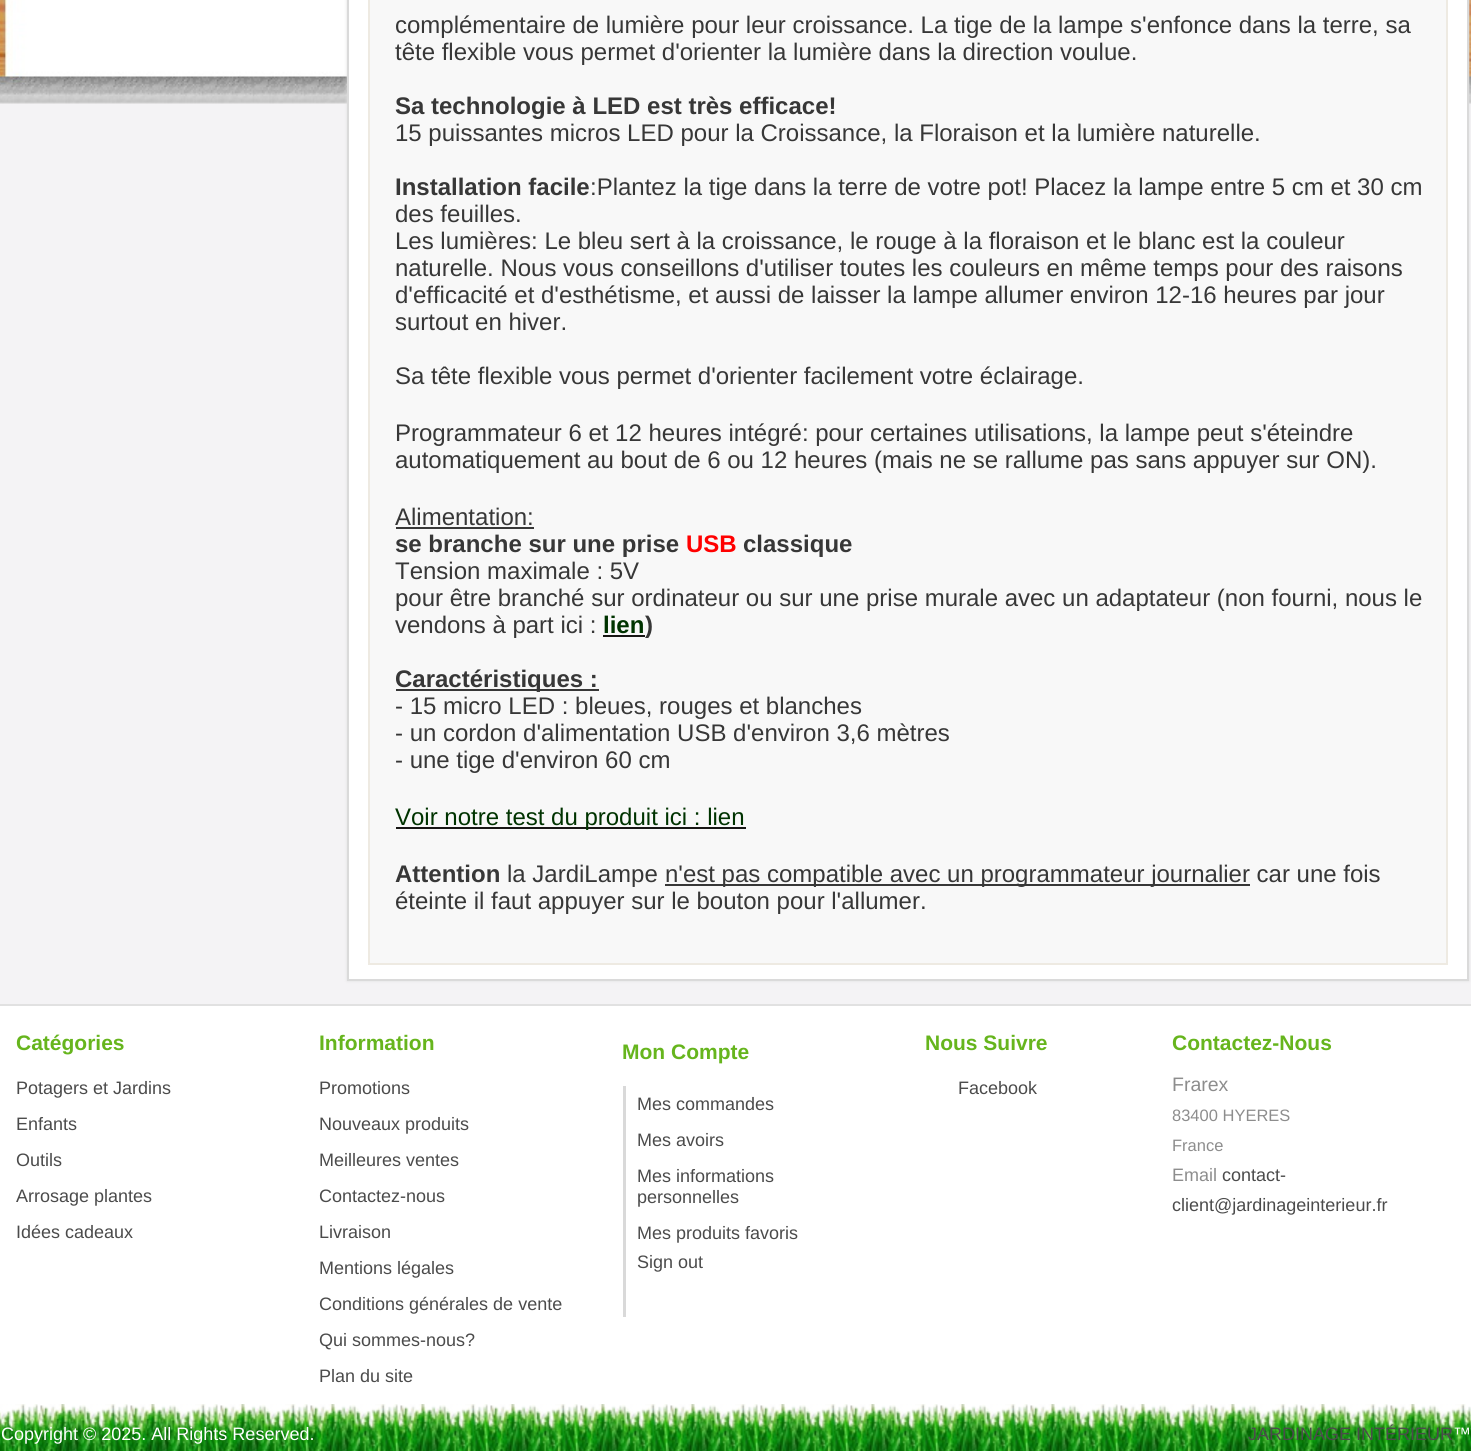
#include <cairo/cairo.h>
#include <math.h>
#include <stddef.h>

typedef struct { double x, y; const char *s; } line_t;
typedef struct { double x, y, w, h; unsigned color; } box_t;
static cairo_t *cr;

static void rgb(unsigned color)
{
	cairo_set_source_rgb(cr, (color >> 16) / 255.0, (color >> 8 & 255) / 255.0, (color & 255) / 255.0);
}

static void rrect(double x, double y, double w, double h, double r)
{
	cairo_new_sub_path(cr);
	cairo_arc(cr, x + w - r, y + h - r, r, 0, M_PI / 2);
	cairo_arc(cr, x + r, y + h - r, r, M_PI / 2, M_PI);
	cairo_arc(cr, x + r, y + r, r, M_PI, 1.5 * M_PI);
	cairo_arc(cr, x + w - r, y + r, r, 1.5 * M_PI, 2 * M_PI);
	cairo_close_path(cr);
}

static void soft_shadow(double x, double y, double w, double h, double r, double blur, double alpha)
{
	cairo_push_group_with_content(cr, CAIRO_CONTENT_ALPHA);
	cairo_set_operator(cr, CAIRO_OPERATOR_SOURCE);
	for (int i = 15; i >= -15 && fmin(w, h) + blur * i / 3 > 0; i -= 2) {
		double e = blur * i / 6;
		cairo_set_source_rgba(cr, 0, 0, 0, alpha * erfc((i - 1) / 8.5) / 2);
		rrect(x - e, y - e, w + 2 * e, h + 2 * e, fmax(0, fmin(r + e + blur * .6, fmin(w, h) / 2 + e)));
		cairo_fill(cr);
	}
	cairo_pattern_t *soft = cairo_pop_group(cr);
	cairo_mask(cr, soft);
	cairo_pattern_destroy(soft);
}

static void image(const char *path, double x, double y, double w, double h)
{
	cairo_surface_t *image = cairo_image_surface_create_from_png(path);
	cairo_save(cr);
	cairo_set_source_surface(cr, image, x, y);
	cairo_rectangle(cr, x, y, w, h);
	cairo_fill(cr);
	cairo_restore(cr);
	cairo_surface_destroy(image);
}

int main(void) {
	cairo_surface_t *surface = cairo_image_surface_create(CAIRO_FORMAT_RGB24, 1471, 1451);
	cr = cairo_create(surface);
	cairo_font_options_t *options = cairo_font_options_create();
	cairo_font_options_set_hint_metrics(options, CAIRO_HINT_METRICS_OFF);
	cairo_font_options_set_hint_style(options, CAIRO_HINT_STYLE_NONE);
	cairo_set_font_options(cr, options);
	cairo_set_miter_limit(cr, 4);
	rgb(0xffffff);
	cairo_paint(cr);
	rgb(0xf4f3f5);
	cairo_rectangle(cr, 0, 103, 1471, 901);
	cairo_fill(cr);
	image("img/1.png", 0, 0, 1471, 104);
	rgb(0xe0e0e0);
	soft_shadow(347, -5, 1122, 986, 0, 1.5, 1);
	rgb(0xffffff);
	cairo_rectangle(cr, 348, -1, 1120, 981);
	cairo_fill_preserve(cr);
	rgb(0xdadada);
	cairo_stroke(cr);
	{
		static const box_t items[] = {
			{370, 0, 1076, 963, 0xf8f8f8},
			{1446, 0, 2, 965, 0xeeeae2},
			{368, 963, 1080, 2, 0xeeeae2},
			{368, 0, 2, 965, 0xeeeae2},
			{396, 527, 138, 2, 0x373737},
			{603, 635, 42, 2, 0x171614},
			{396, 689, 203, 2, 0x373737},
			{396, 827, 350, 2, 0x171614},
			{665, 884, 585, 2, 0x373737},
			{0, 1004, 1471, 2, 0xe1e1e1},
			{623, 1086, 3, 231, 0xd9d9d9},
		};
		for (size_t i = 0; i < sizeof items / sizeof *items; i++) {
			rgb(items[i].color);
			cairo_rectangle(cr, items[i].x, items[i].y, items[i].w, items[i].h);
			cairo_fill(cr);
		}
	}
	image("img/2.png", 0, 1404, 1471, 47);
	cairo_select_font_face(cr, "Liberation Sans", CAIRO_FONT_SLANT_NORMAL, CAIRO_FONT_WEIGHT_NORMAL);
	cairo_set_font_size(cr, 24);
	rgb(0x373737);
	cairo_move_to(cr, 395, 33);
	cairo_show_text(cr, "complémentaire de lumière pour leur croissance. La tige de la lampe s'enfonce dans la terre, sa");
	cairo_move_to(cr, 395, 60);
	cairo_show_text(cr, "tête flexible vous permet d'orienter la lumière dans la direction voulue.");
	cairo_select_font_face(cr, "Liberation Sans", CAIRO_FONT_SLANT_NORMAL, CAIRO_FONT_WEIGHT_BOLD);
	cairo_move_to(cr, 395, 114);
	cairo_show_text(cr, "Sa technologie à LED est très efficace!");
	cairo_select_font_face(cr, "Liberation Sans", CAIRO_FONT_SLANT_NORMAL, CAIRO_FONT_WEIGHT_NORMAL);
	cairo_move_to(cr, 395, 141);
	cairo_show_text(cr, "15 puissantes micros LED pour la Croissance, la Floraison et la lumière naturelle.");
	cairo_select_font_face(cr, "Liberation Sans", CAIRO_FONT_SLANT_NORMAL, CAIRO_FONT_WEIGHT_BOLD);
	cairo_move_to(cr, 395, 195);
	cairo_show_text(cr, "Installation facile");
	cairo_select_font_face(cr, "Liberation Sans", CAIRO_FONT_SLANT_NORMAL, CAIRO_FONT_WEIGHT_NORMAL);
	{
		static const line_t items[] = {
			{590, 195, ":Plantez la tige dans la terre de votre pot! Placez la lampe entre 5 cm et 30 cm"},
			{395, 222, "des feuilles."},
			{395, 249, "Les lumières: Le bleu sert à la croissance, le rouge à la floraison et le blanc est la couleur"},
			{395, 276, "naturelle. Nous vous conseillons d'utiliser toutes les couleurs en même temps pour des raisons"},
			{395, 303, "d'efficacité et d'esthétisme, et aussi de laisser la lampe allumer environ 12-16 heures par jour"},
			{395, 330, "surtout en hiver."},
			{395, 384, "Sa tête flexible vous permet d'orienter facilement votre éclairage."},
			{395, 441, "Programmateur 6 et 12 heures intégré: pour certaines utilisations, la lampe peut s'éteindre"},
			{395, 468, "automatiquement au bout de 6 ou 12 heures (mais ne se rallume pas sans appuyer sur ON)."},
			{395, 525, "Alimentation:"},
		};
		for (size_t i = 0; i < sizeof items / sizeof *items; i++) {
			cairo_move_to(cr, items[i].x, items[i].y);
			cairo_show_text(cr, items[i].s);
		}
	}
	cairo_select_font_face(cr, "Liberation Sans", CAIRO_FONT_SLANT_NORMAL, CAIRO_FONT_WEIGHT_BOLD);
	cairo_move_to(cr, 395, 552);
	cairo_show_text(cr, "se branche sur une prise");
	rgb(0xff0000);
	cairo_move_to(cr, 686, 552);
	cairo_show_text(cr, "USB");
	rgb(0x373737);
	cairo_move_to(cr, 743, 552);
	cairo_show_text(cr, "classique");
	cairo_select_font_face(cr, "Liberation Sans", CAIRO_FONT_SLANT_NORMAL, CAIRO_FONT_WEIGHT_NORMAL);
	{
		static const line_t items[] = {
			{395, 579, "Tension maximale : 5V"},
			{395, 606, "pour être branché sur ordinateur ou sur une prise murale avec un adaptateur (non fourni, nous le"},
			{395, 633, "vendons à part ici :"},
		};
		for (size_t i = 0; i < sizeof items / sizeof *items; i++) {
			cairo_move_to(cr, items[i].x, items[i].y);
			cairo_show_text(cr, items[i].s);
		}
	}
	cairo_select_font_face(cr, "Liberation Sans", CAIRO_FONT_SLANT_NORMAL, CAIRO_FONT_WEIGHT_BOLD);
	rgb(0x003300);
	cairo_move_to(cr, 603, 633);
	cairo_show_text(cr, "lien");
	rgb(0x373737);
	cairo_move_to(cr, 645, 633);
	cairo_show_text(cr, ")");
	cairo_move_to(cr, 395, 687);
	cairo_show_text(cr, "Caractéristiques :");
	cairo_select_font_face(cr, "Liberation Sans", CAIRO_FONT_SLANT_NORMAL, CAIRO_FONT_WEIGHT_NORMAL);
	{
		static const line_t items[] = {
			{395, 714, "- 15 micro LED : bleues, rouges et blanches"},
			{395, 741, "- un cordon d'alimentation USB d'environ 3,6 mètres"},
			{395, 768, "- une tige d'environ 60 cm"},
		};
		for (size_t i = 0; i < sizeof items / sizeof *items; i++) {
			cairo_move_to(cr, items[i].x, items[i].y);
			cairo_show_text(cr, items[i].s);
		}
	}
	rgb(0x003300);
	cairo_move_to(cr, 395, 825);
	cairo_show_text(cr, "Voir notre test du produit ici : lien");
	cairo_select_font_face(cr, "Liberation Sans", CAIRO_FONT_SLANT_NORMAL, CAIRO_FONT_WEIGHT_BOLD);
	rgb(0x373737);
	cairo_move_to(cr, 395, 882);
	cairo_show_text(cr, "Attention");
	cairo_select_font_face(cr, "Liberation Sans", CAIRO_FONT_SLANT_NORMAL, CAIRO_FONT_WEIGHT_NORMAL);
	{
		static const line_t items[] = {
			{507, 882, "la JardiLampe"},
			{665, 882, "n'est pas compatible avec un programmateur journalier car une fois"},
			{395, 909, "éteinte il faut appuyer sur le bouton pour l'allumer."},
		};
		for (size_t i = 0; i < sizeof items / sizeof *items; i++) {
			cairo_move_to(cr, items[i].x, items[i].y);
			cairo_show_text(cr, items[i].s);
		}
	}
	cairo_select_font_face(cr, "Liberation Sans", CAIRO_FONT_SLANT_NORMAL, CAIRO_FONT_WEIGHT_BOLD);
	cairo_set_font_size(cr, 21);
	rgb(0x66b51d);
	cairo_move_to(cr, 16, 1050);
	cairo_show_text(cr, "Catégories");
	cairo_select_font_face(cr, "Liberation Sans", CAIRO_FONT_SLANT_NORMAL, CAIRO_FONT_WEIGHT_NORMAL);
	cairo_set_font_size(cr, 18);
	rgb(0x4b4b4b);
	{
		static const line_t items[] = {
			{16, 1094, "Potagers et Jardins"},
			{16, 1130, "Enfants"},
			{16, 1166, "Outils"},
			{16, 1202, "Arrosage plantes"},
			{16, 1238, "Idées cadeaux"},
		};
		for (size_t i = 0; i < sizeof items / sizeof *items; i++) {
			cairo_move_to(cr, items[i].x, items[i].y);
			cairo_show_text(cr, items[i].s);
		}
	}
	cairo_select_font_face(cr, "Liberation Sans", CAIRO_FONT_SLANT_NORMAL, CAIRO_FONT_WEIGHT_BOLD);
	cairo_set_font_size(cr, 21);
	rgb(0x66b51d);
	cairo_move_to(cr, 319, 1050);
	cairo_show_text(cr, "Information");
	cairo_select_font_face(cr, "Liberation Sans", CAIRO_FONT_SLANT_NORMAL, CAIRO_FONT_WEIGHT_NORMAL);
	cairo_set_font_size(cr, 18);
	rgb(0x4b4b4b);
	{
		static const line_t items[] = {
			{319, 1094, "Promotions"},
			{319, 1130, "Nouveaux produits"},
			{319, 1166, "Meilleures ventes"},
			{319, 1202, "Contactez-nous"},
			{319, 1238, "Livraison"},
			{319, 1274, "Mentions légales"},
			{319, 1310, "Conditions générales de vente"},
			{319, 1346, "Qui sommes-nous?"},
			{319, 1382, "Plan du site"},
		};
		for (size_t i = 0; i < sizeof items / sizeof *items; i++) {
			cairo_move_to(cr, items[i].x, items[i].y);
			cairo_show_text(cr, items[i].s);
		}
	}
	cairo_select_font_face(cr, "Liberation Sans", CAIRO_FONT_SLANT_NORMAL, CAIRO_FONT_WEIGHT_BOLD);
	cairo_set_font_size(cr, 21);
	rgb(0x66b51d);
	cairo_move_to(cr, 622, 1059);
	cairo_show_text(cr, "Mon Compte");
	cairo_select_font_face(cr, "Liberation Sans", CAIRO_FONT_SLANT_NORMAL, CAIRO_FONT_WEIGHT_NORMAL);
	cairo_set_font_size(cr, 18);
	rgb(0x4b4b4b);
	{
		static const line_t items[] = {
			{637, 1110, "Mes commandes"},
			{637, 1146, "Mes avoirs"},
			{637, 1182, "Mes informations"},
			{637, 1203, "personnelles"},
			{637, 1239, "Mes produits favoris"},
			{637, 1268, "Sign out"},
		};
		for (size_t i = 0; i < sizeof items / sizeof *items; i++) {
			cairo_move_to(cr, items[i].x, items[i].y);
			cairo_show_text(cr, items[i].s);
		}
	}
	cairo_select_font_face(cr, "Liberation Sans", CAIRO_FONT_SLANT_NORMAL, CAIRO_FONT_WEIGHT_BOLD);
	cairo_set_font_size(cr, 21);
	rgb(0x66b51d);
	cairo_move_to(cr, 925, 1050);
	cairo_show_text(cr, "Nous Suivre");
	cairo_select_font_face(cr, "Liberation Sans", CAIRO_FONT_SLANT_NORMAL, CAIRO_FONT_WEIGHT_NORMAL);
	cairo_set_font_size(cr, 18);
	rgb(0x4b4b4b);
	cairo_move_to(cr, 958, 1094);
	cairo_show_text(cr, "Facebook");
	cairo_select_font_face(cr, "Liberation Sans", CAIRO_FONT_SLANT_NORMAL, CAIRO_FONT_WEIGHT_BOLD);
	cairo_set_font_size(cr, 21);
	rgb(0x66b51d);
	cairo_move_to(cr, 1172, 1050);
	cairo_show_text(cr, "Contactez-Nous");
	cairo_select_font_face(cr, "Liberation Sans", CAIRO_FONT_SLANT_NORMAL, CAIRO_FONT_WEIGHT_NORMAL);
	cairo_set_font_size(cr, 19.5);
	rgb(0x8d8d8d);
	cairo_move_to(cr, 1172, 1091);
	cairo_show_text(cr, "Frarex");
	cairo_set_font_size(cr, 16.5);
	cairo_move_to(cr, 1172, 1121);
	cairo_show_text(cr, "83400 HYERES");
	cairo_move_to(cr, 1172, 1151);
	cairo_show_text(cr, "France");
	cairo_set_font_size(cr, 18);
	cairo_move_to(cr, 1172, 1181);
	cairo_show_text(cr, "Email");
	rgb(0x4b4b4b);
	cairo_move_to(cr, 1222, 1181);
	cairo_show_text(cr, "contact-");
	cairo_move_to(cr, 1172, 1211);
	cairo_show_text(cr, "client@jardinageinterieur.fr");
	rgb(0xffffff);
	cairo_move_to(cr, 1, 1440);
	cairo_show_text(cr, "Copyright © 2025. All Rights Reserved.");
	rgb(0x4b4b4b);
	cairo_move_to(cr, 1248, 1440);
	cairo_show_text(cr, "JARDINAGE INTÉRIEUR");
	rgb(0xffffff);
	cairo_move_to(cr, 1453, 1440);
	cairo_show_text(cr, "™");
	cairo_surface_write_to_png(surface, "page.png");
	cairo_font_options_destroy(options);
	cairo_destroy(cr);
	cairo_surface_destroy(surface);
	return 0;
}
